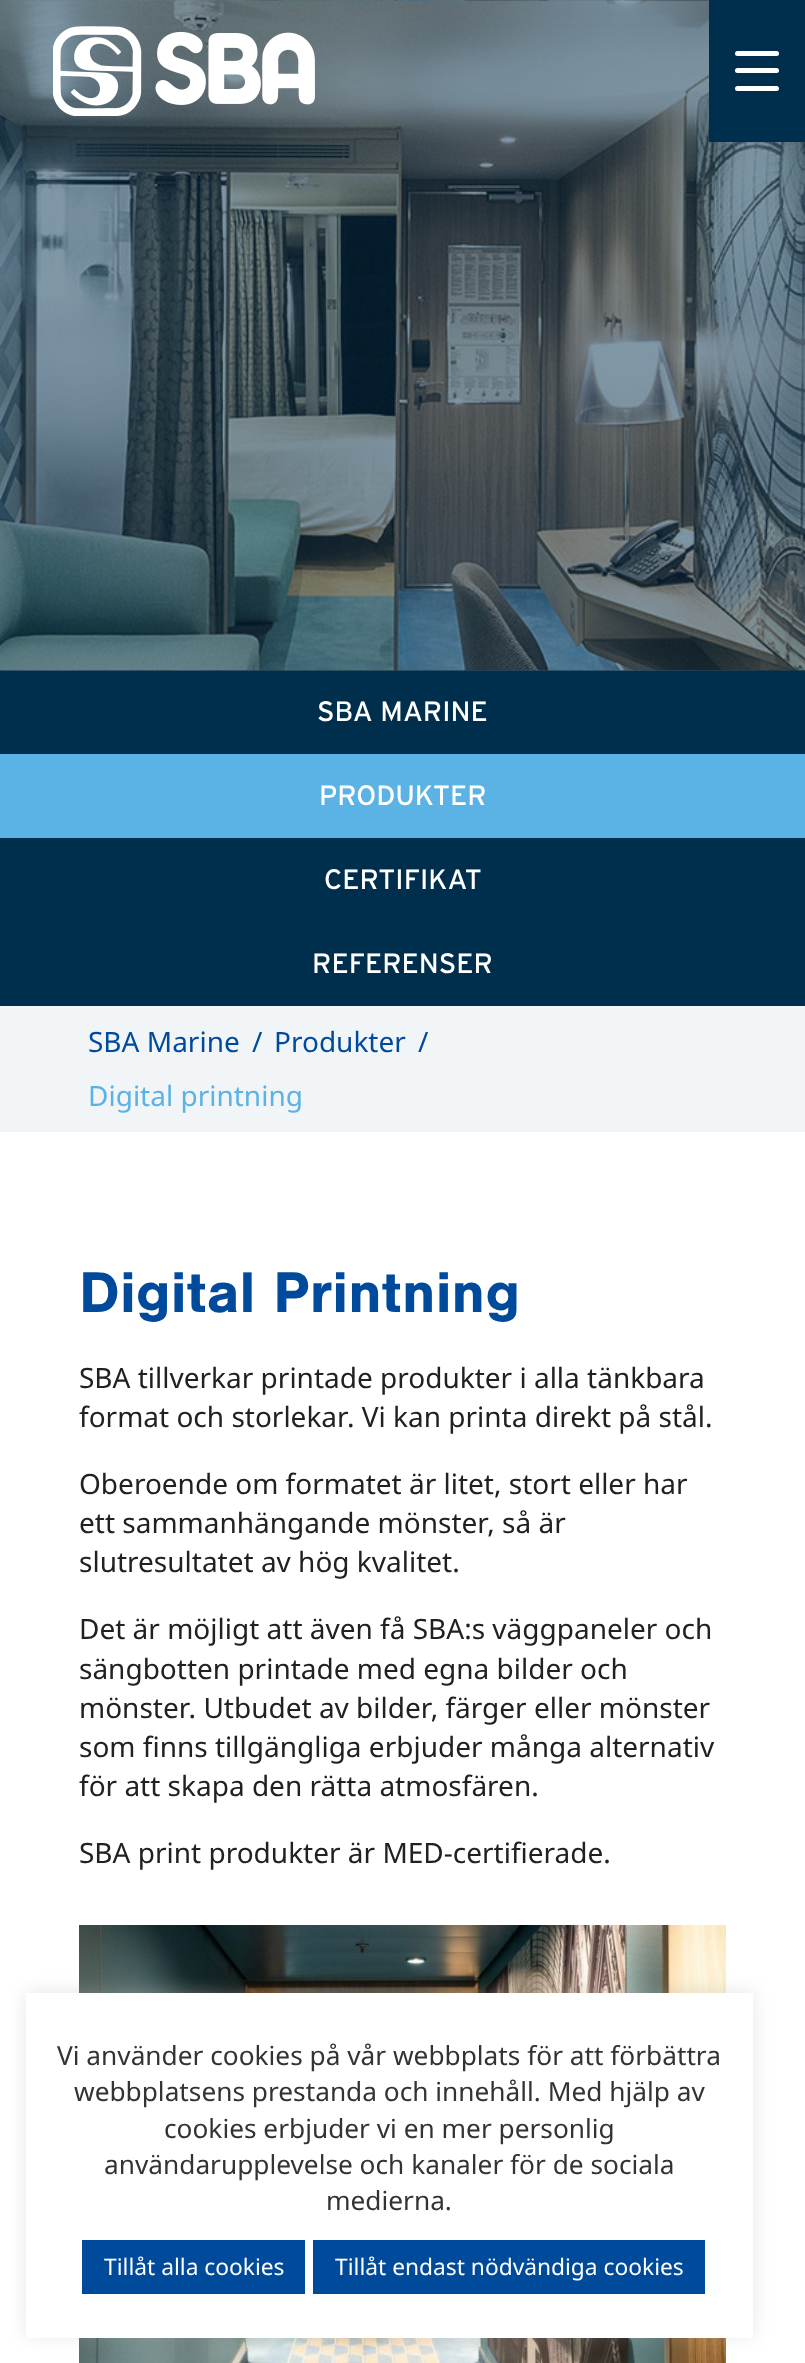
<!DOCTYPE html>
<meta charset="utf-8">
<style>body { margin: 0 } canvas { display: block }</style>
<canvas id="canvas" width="805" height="2363"></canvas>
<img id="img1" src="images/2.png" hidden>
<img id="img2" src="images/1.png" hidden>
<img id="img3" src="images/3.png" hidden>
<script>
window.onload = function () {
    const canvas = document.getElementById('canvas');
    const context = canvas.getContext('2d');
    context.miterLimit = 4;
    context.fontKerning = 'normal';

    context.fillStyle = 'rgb(255, 255, 255)';
    context.fillRect(0, 0, 805, 2363);
    context.fillStyle = 'rgb(0, 47, 78)';
    context.fillRect(0, 670, 805, 336);
    context.drawImage(document.getElementById('img1'), 0, 0, 805, 671);
    context.drawImage(document.getElementById('img2'), 53, 26, 262, 90);
    context.fillRect(709, 0, 96, 142);
    context.fillStyle = 'rgb(255, 255, 255)';
    context.beginPath();
    context.roundRect(735, 68, 44, 5, 2.5);
    context.fill();
    context.beginPath();
    context.roundRect(735, 51, 44, 5, 2.5);
    context.fill();
    context.beginPath();
    context.roundRect(735, 86, 44, 5, 2.5);
    context.fill();
    context.fillStyle = 'rgb(90, 178, 229)';
    context.fillRect(0, 754, 805, 84);
    context.fillStyle = 'rgb(242, 245, 247)';
    context.fillRect(0, 1006, 805, 126);
    context.drawImage(document.getElementById('img3'), 79, 1925, 647, 438);
    context.fillStyle = 'rgba(172, 171, 171, 0.3)';
    context.filter = 'blur(9px)';
    context.beginPath();
    context.rect(26, 1992, 727, 344);
    context.fill();
    context.filter = 'none';
    context.fillStyle = 'rgb(255, 255, 255)';
    context.fillRect(26, 1993, 727, 345);
    context.fillStyle = 'rgb(0, 74, 156)';
    context.fillRect(82, 2240, 223, 54);
    context.fillRect(313, 2240, 392, 54);
    context.font = '28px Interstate';
    context.fillStyle = 'rgb(255, 255, 255)';
    context.fillText('SBA MARINE', 317, 721);
    context.fillText('PRODUKTER', 319, 805);
    context.fillText('CERTIFIKAT', 324, 889);
    context.fillText('REFERENSER', 312, 973);
    context.font = '28px Noto Sans';
    context.fillStyle = 'rgb(0, 74, 156)';
    context.fillText('SBA Marine', 88, 1052);
    context.fillText('/', 252, 1052);
    context.fillText('Produkter', 274, 1052);
    context.fillText('/', 418, 1052);
    context.fillStyle = 'rgb(90, 178, 229)';
    context.fillText('Digital printning', 88, 1106);
    context.font = 'bold 59.5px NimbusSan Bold';
    context.fillStyle = 'rgb(0, 74, 156)';
    context.fillText('Digital Printning', 79, 1312);
    context.font = '28px Noto Sans';
    context.fillStyle = 'rgb(33, 33, 33)';
    context.fillText('SBA tillverkar printade produkter i alla tänkbara', 79, 1388);
    context.fillText('format och storlekar. Vi kan printa direkt på stål.', 79, 1427);
    context.fillText('Oberoende om formatet är litet, stort eller har', 79, 1494);
    context.fillText('ett sammanhängande mönster, så är', 79, 1533);
    context.fillText('slutresultatet av hög kvalitet.', 79, 1572);
    context.fillText('Det är möjligt att även få SBA:s väggpaneler och', 79, 1639);
    context.fillText('sängbotten printade med egna bilder och', 79, 1679);
    context.fillText('mönster. Utbudet av bilder, färger eller mönster', 79, 1718);
    context.fillText('som finns tillgängliga erbjuder många alternativ', 79, 1757);
    context.fillText('för att skapa den rätta atmosfären.', 79, 1796);
    context.fillText('SBA print produkter är MED-certifierade.', 79, 1863);
    context.font = '26.25px Noto Sans';
    context.fillStyle = 'rgb(51, 51, 51)';
    context.fillText('Vi använder cookies på vår webbplats för att förbättra', 57, 2065);
    context.fillText('webbplatsens prestanda och innehåll. Med hjälp av', 74, 2101);
    context.fillText('cookies erbjuder vi en mer personlig', 164, 2138);
    context.fillText('användarupplevelse och kanaler för de sociala', 104, 2174);
    context.fillText('medierna.', 326, 2210);
    context.font = '22.75px Noto Sans';
    context.fillStyle = 'rgb(255, 255, 255)';
    context.fillText('Tillåt alla cookies', 104, 2275);
    context.fillText('Tillåt endast nödvändiga cookies', 335, 2275);
};
</script>
